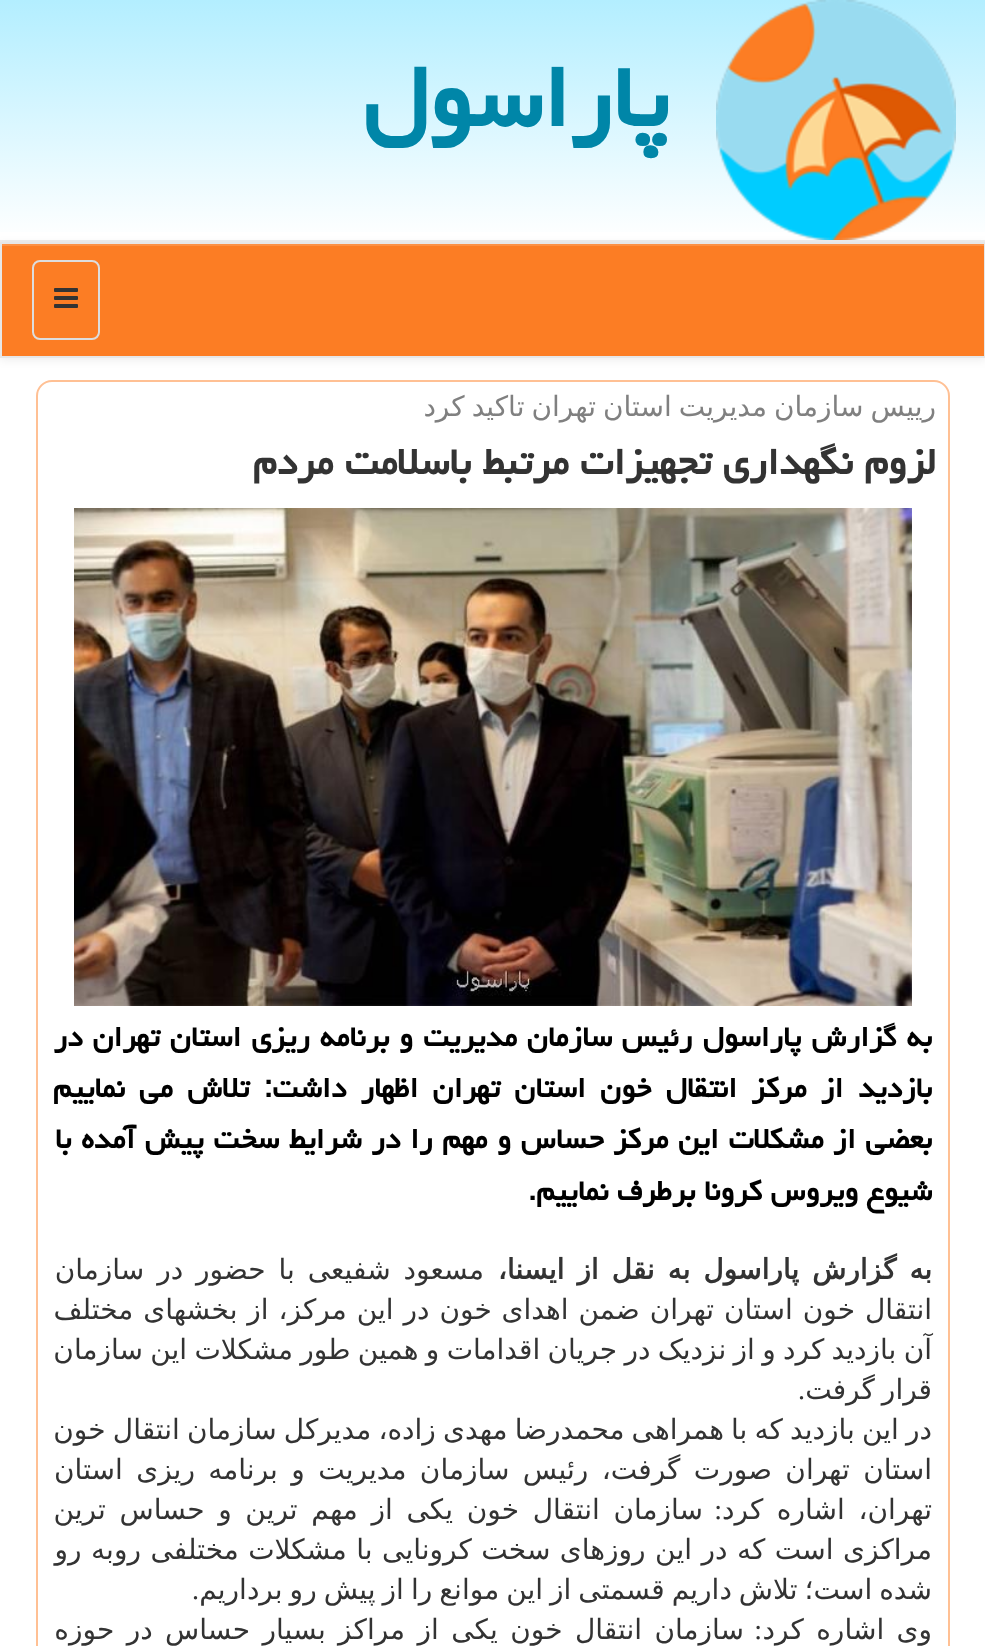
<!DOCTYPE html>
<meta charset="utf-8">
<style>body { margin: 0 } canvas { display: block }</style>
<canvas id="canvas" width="985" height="1646"></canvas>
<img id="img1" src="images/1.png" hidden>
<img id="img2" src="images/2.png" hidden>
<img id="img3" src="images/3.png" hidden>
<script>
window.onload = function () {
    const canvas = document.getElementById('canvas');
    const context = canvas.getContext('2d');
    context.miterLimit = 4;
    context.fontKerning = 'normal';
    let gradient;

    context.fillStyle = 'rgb(255, 255, 255)';
    context.fillRect(0, 0, 985, 1646);
    gradient = context.createLinearGradient(493, 0, 493, 240);
    gradient.addColorStop(0, 'rgb(179, 238, 255)');
    gradient.addColorStop(1, 'rgb(255, 255, 255)');
    context.fillStyle = gradient;
    context.fillRect(0, 0, 985, 232);
    context.fillStyle = 'rgb(238, 238, 238)';
    context.fillRect(0, 240, 985, 2);
    context.drawImage(document.getElementById('img1'), 716, 0, 240, 240);
    context.fillStyle = 'rgba(0, 0, 0, 0.07)';
    context.filter = 'blur(5px)';
    context.beginPath();
    context.rect(0, 244, 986, 116);
    context.fill();
    context.filter = 'none';
    context.fillStyle = 'rgb(252, 125, 36)';
    context.fillRect(2, 246, 982, 110);
    context.fillStyle = 'rgb(252, 145, 69)';
    context.fillRect(2, 244, 982, 2);
    context.strokeStyle = 'rgb(231, 231, 231)';
    context.lineWidth = 2;
    context.strokeRect(1, 243, 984, 114);
    context.beginPath();
    context.roundRect(33, 261, 66, 78, 7);
    context.strokeStyle = 'rgb(221, 221, 221)';
    context.stroke();
    context.drawImage(document.getElementById('img2'), 54, 288, 24, 20);
    context.beginPath();
    context.roundRect(37, 381, 912, 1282, 15);
    context.strokeStyle = 'rgb(255, 192, 148)';
    context.stroke();
    context.drawImage(document.getElementById('img3'), 74, 508, 838, 498);
    context.direction = 'rtl';
    context.font = 'bold 112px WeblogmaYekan';
    context.fillStyle = 'rgb(0, 134, 168)';
    context.fillText('پاراسول', 669, 126);
    context.wordSpacing = '-1.9px';
    context.font = '28px DejaVu Sans';
    context.fillStyle = 'rgb(128, 128, 128)';
    context.fillText('رییس سازمان مدیریت استان تهران تاكید كرد', 936, 416);
    context.wordSpacing = '0px';
    context.font = 'bold 47.6px WeblogmaYekan';
    context.fillStyle = 'rgb(51, 51, 51)';
    context.fillText('لزوم نگهداری تجهیزات مرتبط باسلامت مردم', 936, 474);
    context.wordSpacing = '1.4px';
    context.font = 'bold 36px WeblogmaYekan';
    context.fillStyle = 'rgb(0, 0, 0)';
    context.fillText('به گزارش پاراسول رئیس سازمان مدیریت و برنامه ریزی استان تهران در', 932, 1046);
    context.wordSpacing = '5.75px';
    context.fillText('بازدید از مركز انتقال خون استان تهران اظهار داشت: تلاش می نماییم', 932, 1097);
    context.wordSpacing = '1.1px';
    context.fillText('بعضی از مشكلات این مركز حساس و مهم را در شرایط سخت پیش آمده با', 932, 1148);
    context.wordSpacing = '0px';
    context.fillText('شیوع ویروس كرونا برطرف نماییم.', 932, 1200);
    context.wordSpacing = '4px';
    context.font = 'bold 28px DejaVu Sans';
    context.fillStyle = 'rgb(51, 51, 51)';
    context.fillText('به گزارش پاراسول به نقل از ایسنا،', 932, 1279);
    context.font = '28px DejaVu Sans';
    context.fillText('مسعود شفیعی با حضور در سازمان', 484, 1279);
    context.wordSpacing = '1px';
    context.fillText('انتقال خون استان تهران ضمن اهدای خون در این مرکز، از بخشهای مختلف', 932, 1319);
    context.wordSpacing = '-1.6px';
    context.fillText('آن بازدید کرد و از نزدیک در جریان اقدامات و همین طور مشکلات این سازمان', 932, 1359);
    context.wordSpacing = '-1.9px';
    context.fillText('قرار گرفت', 932, 1399);
    context.wordSpacing = '0px';
    context.font = '28px Liberation Serif';
    context.fillText('.', 805, 1399);
    context.wordSpacing = '-1.75px';
    context.font = '28px DejaVu Sans';
    context.fillText('در این بازدید که با همراهی محمدرضا مهدی زاده، مدیرکل سازمان انتقال خون', 932, 1439);
    context.wordSpacing = '4.5px';
    context.fillText('استان تهران صورت گرفت، رئیس سازمان مدیریت و برنامه ریزی استان', 932, 1479);
    context.wordSpacing = '4.75px';
    context.fillText('تهران، اشاره کرد', 932, 1519);
    context.wordSpacing = '0px';
    context.font = '28px Liberation Serif';
    context.fillText(':', 722, 1519);
    context.wordSpacing = '4.75px';
    context.font = '28px DejaVu Sans';
    context.fillText('سازمان انتقال خون یکی از مهم ترین و حساس ترین', 703, 1519);
    context.wordSpacing = '0.6px';
    context.fillText('مراکزی است که در این روزهای سخت کرونایی با مشکلات مختلفی روبه رو', 932, 1559);
    context.wordSpacing = '-1.9px';
    context.fillText('شده است؛ تلاش داریم قسمتی از این موانع را از پیش رو برداریم', 932, 1599);
    context.wordSpacing = '0px';
    context.font = '28px Liberation Serif';
    context.fillText('.', 199, 1599);
    context.wordSpacing = '3.5px';
    context.font = '28px DejaVu Sans';
    context.fillText('وی اشاره کرد', 932, 1639);
    context.wordSpacing = '0px';
    context.font = '28px Liberation Serif';
    context.fillText(':', 762, 1639);
    context.wordSpacing = '3.5px';
    context.font = '28px DejaVu Sans';
    context.fillText('سازمان انتقال خون یکی از مراکز بسیار حساس در حوزه', 744, 1639);
};
</script>
